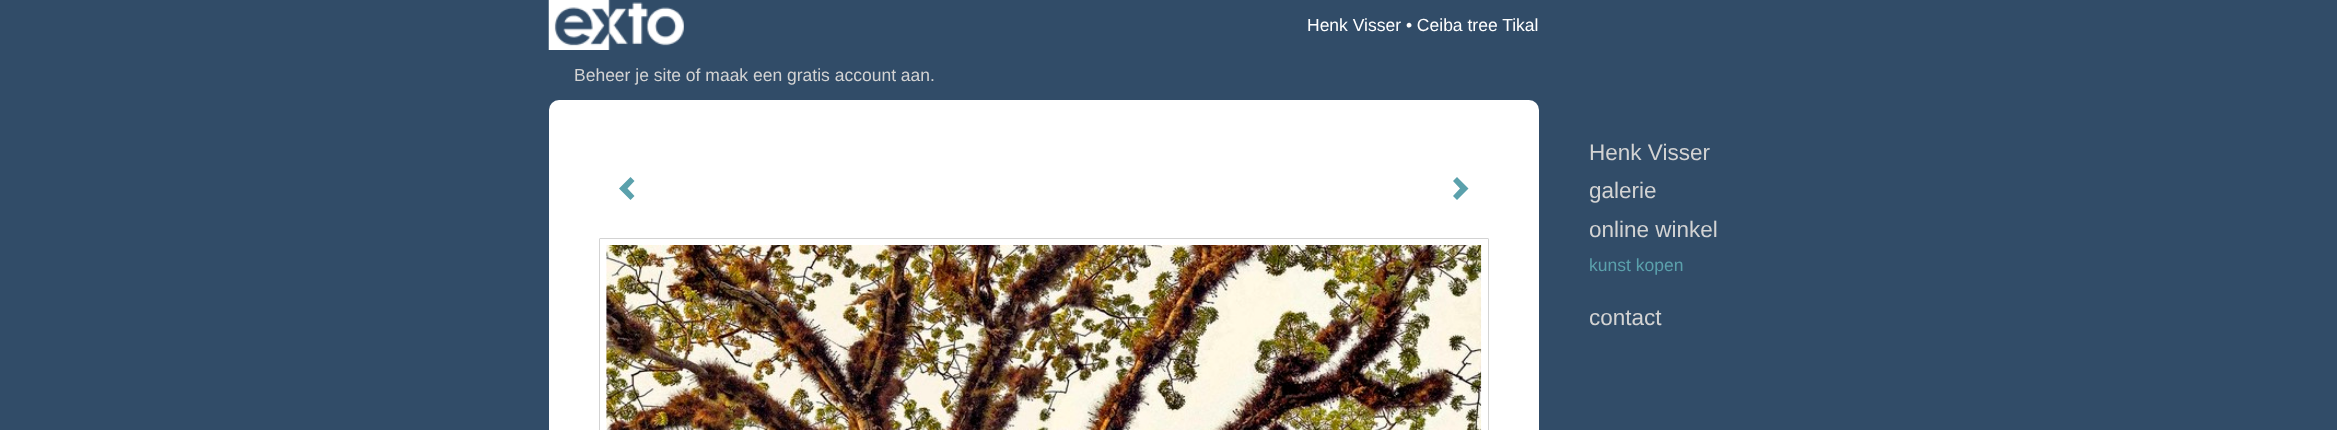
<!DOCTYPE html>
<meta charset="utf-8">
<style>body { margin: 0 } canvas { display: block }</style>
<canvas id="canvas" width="2337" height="430"></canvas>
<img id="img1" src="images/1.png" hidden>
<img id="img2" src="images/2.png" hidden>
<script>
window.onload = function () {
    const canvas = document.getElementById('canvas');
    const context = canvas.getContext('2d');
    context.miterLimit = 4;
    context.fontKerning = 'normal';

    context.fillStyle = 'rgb(49, 76, 104)';
    context.fillRect(0, 0, 2337, 430);
    context.drawImage(document.getElementById('img1'), 548, 0, 136, 50);
    context.fillStyle = 'rgb(255, 255, 255)';
    context.beginPath();
    context.roundRect(549, 100, 990, 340, 10);
    context.fill();
    context.fillStyle = 'rgb(91, 161, 172)';
    context.beginPath();
    context.moveTo(634.5, 181);
    context.lineTo(627.5, 188.5);
    context.lineTo(634.5, 196);
    context.lineTo(630.5, 200);
    context.lineTo(619, 188.5);
    context.lineTo(630.5, 177);
    context.closePath();
    context.fill();
    context.beginPath();
    context.moveTo(1468.5, 188.5);
    context.lineTo(1457, 200);
    context.lineTo(1453, 196);
    context.lineTo(1460, 188.5);
    context.lineTo(1453, 181);
    context.lineTo(1457, 177);
    context.closePath();
    context.fill();
    context.beginPath();
    context.roundRect(599.5, 238.5, 889, 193, 0.5);
    context.strokeStyle = 'rgb(211, 211, 211)';
    context.stroke();
    context.drawImage(document.getElementById('img2'), 606, 245, 876, 185);
    context.font = '17.5px Liberation Sans';
    context.fillStyle = 'rgb(255, 255, 255)';
    context.fillText('Henk Visser • Ceiba tree Tikal', 1307, 31);
    context.fillStyle = 'rgb(211, 211, 211)';
    context.fillText('Beheer je site of maak een gratis account aan.', 574, 81);
    context.font = '22.5px Liberation Sans';
    context.fillText('Henk Visser', 1589, 160);
    context.fillText('galerie', 1589, 198);
    context.fillText('online winkel', 1589, 237);
    context.font = '17.5px Liberation Sans';
    context.fillStyle = 'rgb(91, 161, 172)';
    context.fillText('kunst kopen', 1589, 271);
    context.font = '22.5px Liberation Sans';
    context.fillStyle = 'rgb(211, 211, 211)';
    context.fillText('contact', 1589, 325);
};
</script>
